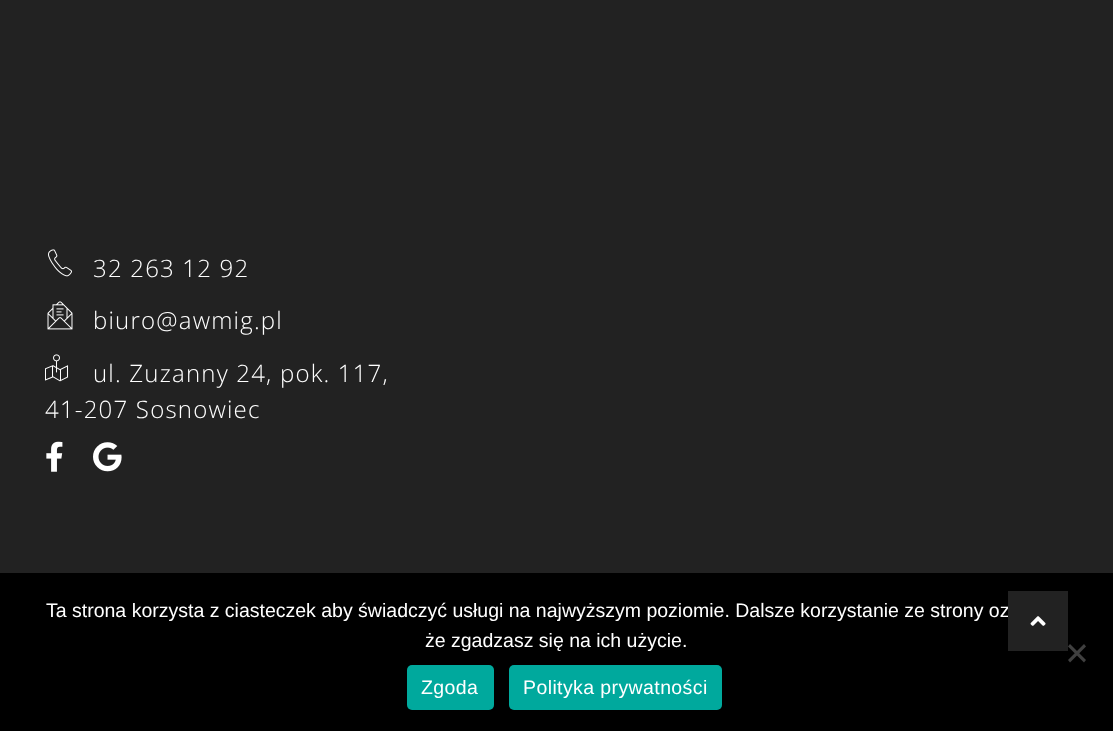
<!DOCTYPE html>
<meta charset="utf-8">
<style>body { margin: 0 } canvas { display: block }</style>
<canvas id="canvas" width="1113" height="731"></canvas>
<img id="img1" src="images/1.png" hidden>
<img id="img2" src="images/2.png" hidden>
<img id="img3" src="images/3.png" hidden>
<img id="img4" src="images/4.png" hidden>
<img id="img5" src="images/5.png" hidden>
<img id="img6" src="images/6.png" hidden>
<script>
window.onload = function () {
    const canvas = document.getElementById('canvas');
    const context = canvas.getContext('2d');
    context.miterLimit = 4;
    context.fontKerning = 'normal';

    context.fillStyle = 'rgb(34, 34, 34)';
    context.fillRect(0, 0, 1113, 731);
    context.drawImage(document.getElementById('img1'), 48, 249, 24, 28);
    context.drawImage(document.getElementById('img2'), 47, 301, 26, 29);
    context.drawImage(document.getElementById('img3'), 45, 354, 24, 28);
    context.drawImage(document.getElementById('img4'), 46, 441, 17, 31);
    context.drawImage(document.getElementById('img5'), 93, 442, 29, 30);
    context.fillStyle = 'rgb(0, 0, 0)';
    context.fillRect(0, 573, 1113, 158);
    context.fillStyle = 'rgb(64, 64, 64)';
    context.beginPath();
    context.moveTo(1084, 644);
    context.lineTo(1086, 646.5);
    context.lineTo(1070, 662.5);
    context.lineTo(1068, 660);
    context.closePath();
    context.fill();
    context.beginPath();
    context.moveTo(1068, 646.5);
    context.lineTo(1070, 644);
    context.lineTo(1086, 660);
    context.lineTo(1084, 662.5);
    context.closePath();
    context.fill();
    context.fillStyle = 'rgb(0, 169, 157)';
    context.beginPath();
    context.roundRect(407, 665, 87, 45, 5);
    context.fill();
    context.beginPath();
    context.roundRect(509, 665, 213, 45, 5);
    context.fill();
    context.letterSpacing = '1.2px';
    context.font = '300 24px Open Sans';
    context.fillStyle = 'rgb(255, 255, 255)';
    context.fillText('32 263 12 92', 93, 277);
    context.fillText('biuro@awmig.pl', 93, 329);
    context.fillText('ul. Zuzanny 24, pok. 117,', 93, 382);
    context.fillText('41-207 Sosnowiec', 45, 418);
    context.letterSpacing = '0px';
    context.font = '19.5px Liberation Sans';
    context.fillText('Ta strona korzysta z ciasteczek aby świadczyć usługi na najwyższym poziomie. Dalsze korzystanie ze strony oz', 46, 617);
    context.fillText('że zgadzasz się na ich użycie.', 425, 647);
    context.letterSpacing = '0.4px';
    context.fillText('Zgoda', 421, 694);
    context.fillText('Polityka prywatności', 523, 694);
    context.fillStyle = 'rgb(34, 34, 34)';
    context.fillRect(1008, 591, 60, 60);
    context.drawImage(document.getElementById('img6'), 1030, 616, 16, 10);
};
</script>
